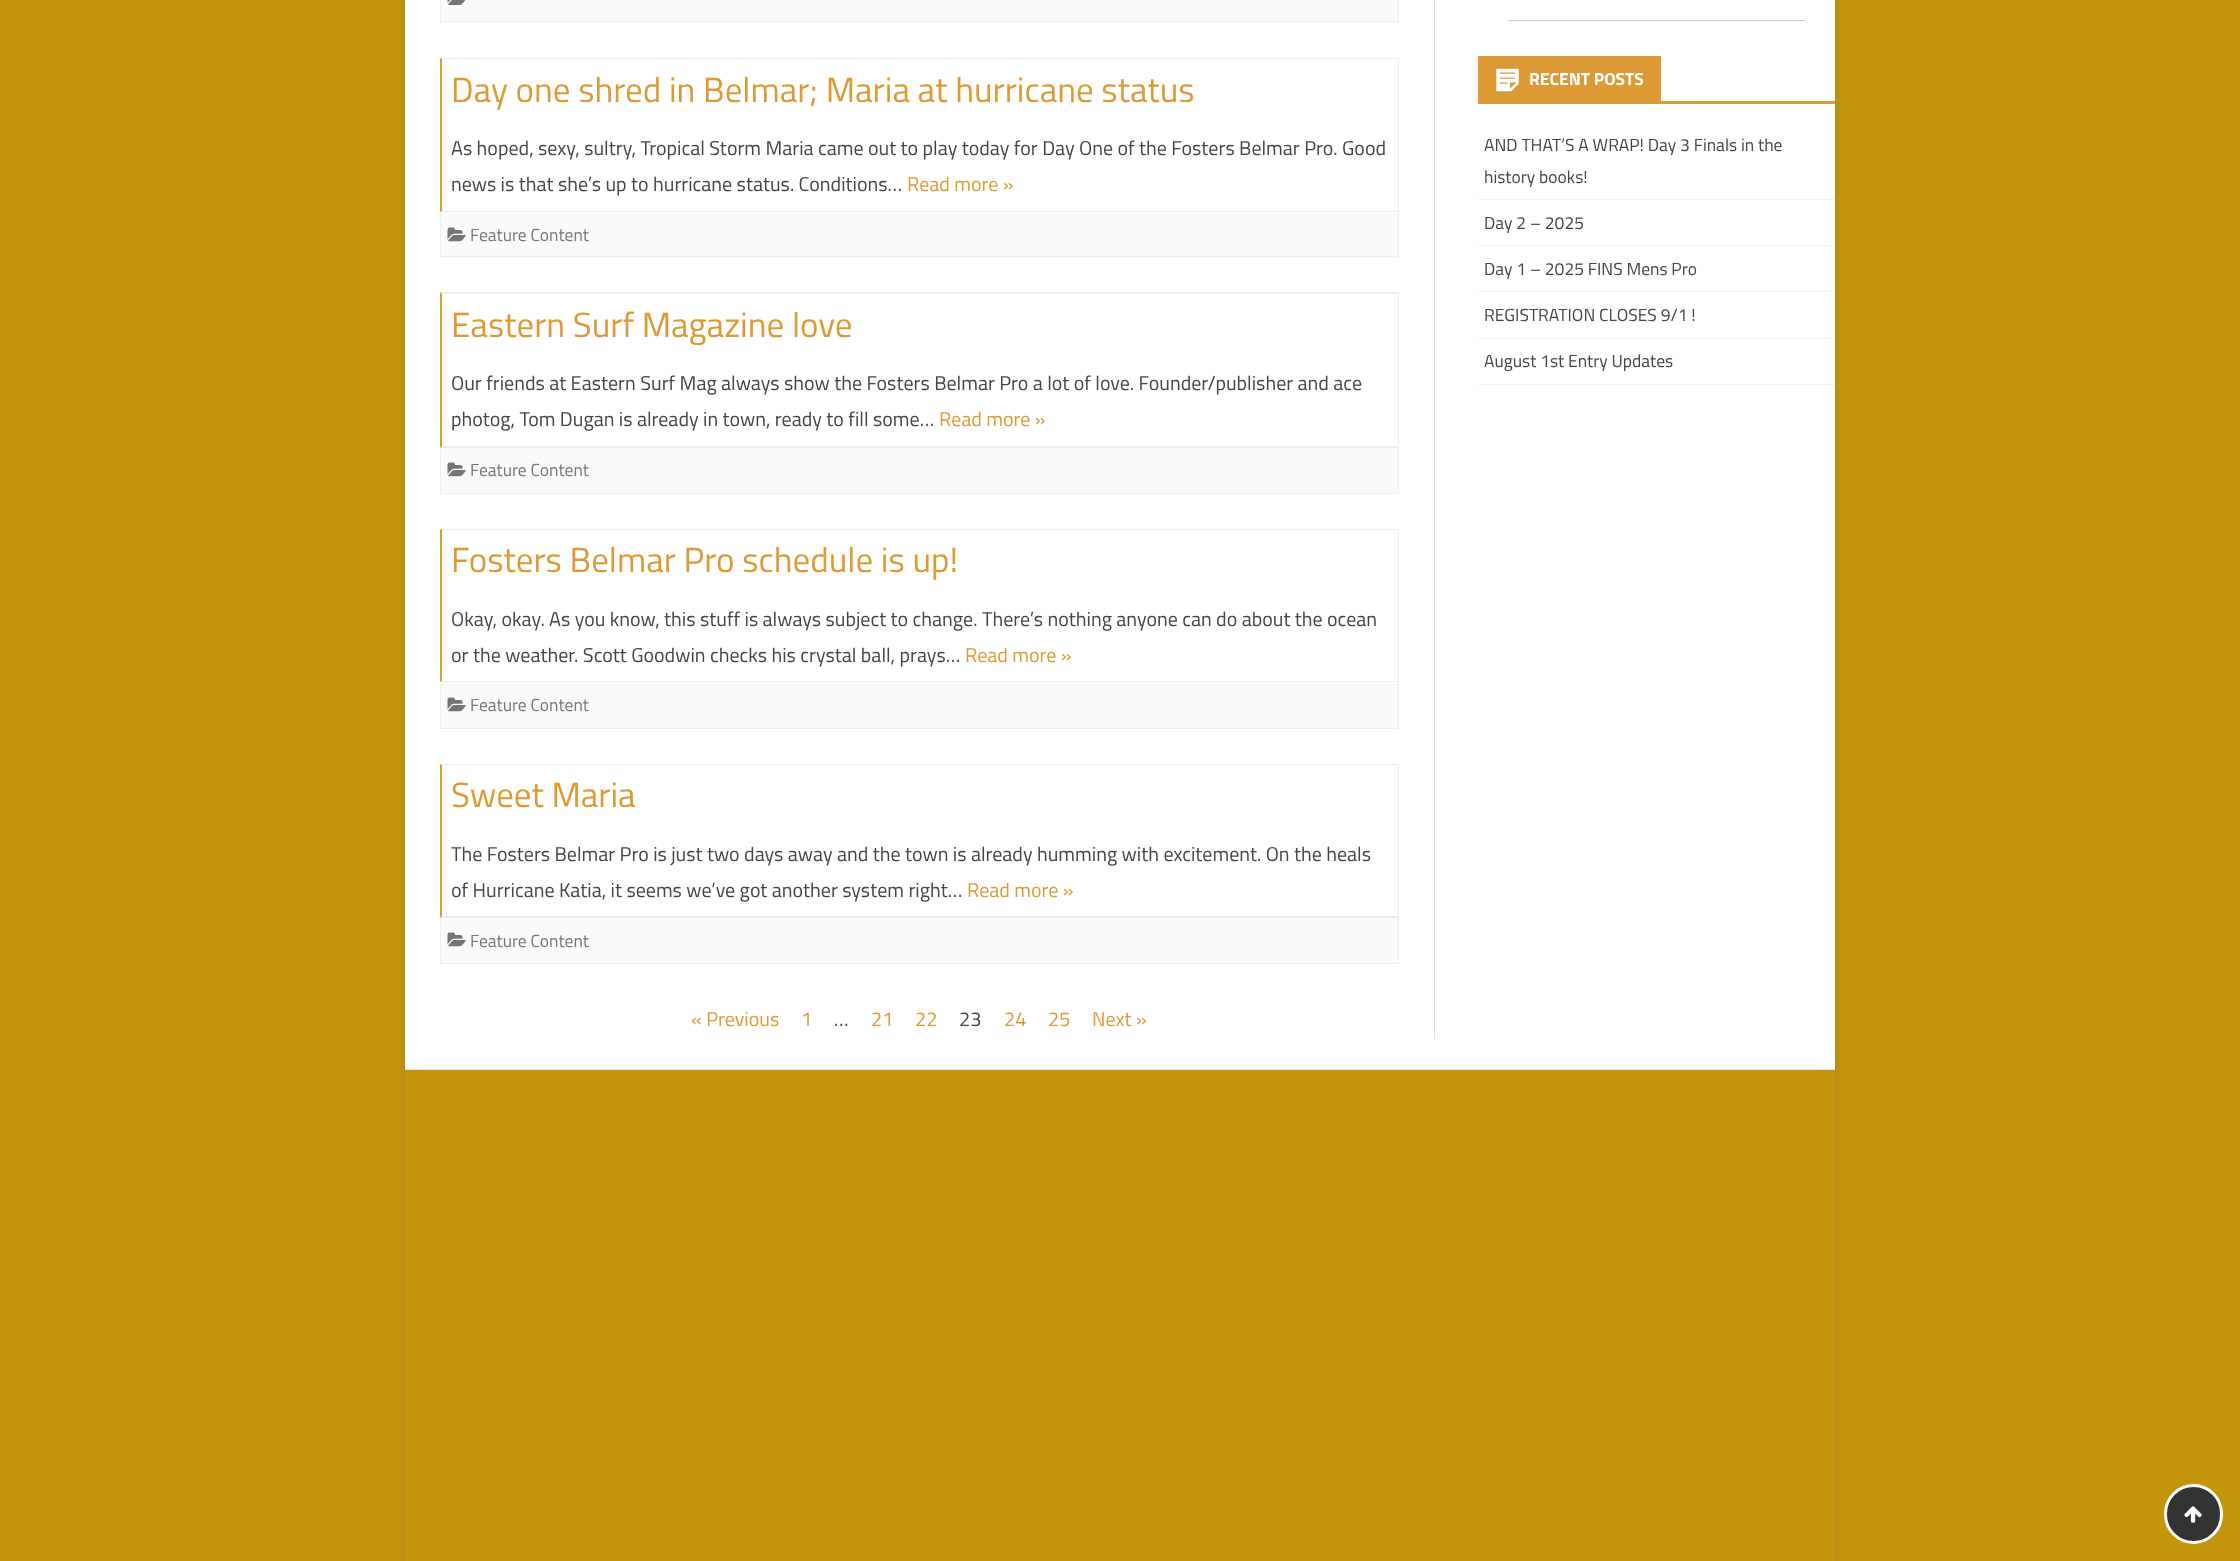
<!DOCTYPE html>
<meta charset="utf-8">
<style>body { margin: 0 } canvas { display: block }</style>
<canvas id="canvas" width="2240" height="1561"></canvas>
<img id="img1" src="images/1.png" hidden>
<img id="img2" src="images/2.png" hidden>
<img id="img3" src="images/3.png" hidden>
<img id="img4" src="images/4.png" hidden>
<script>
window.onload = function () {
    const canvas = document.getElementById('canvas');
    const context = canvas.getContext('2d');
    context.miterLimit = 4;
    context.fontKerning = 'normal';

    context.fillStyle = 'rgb(196, 150, 12)';
    context.fillRect(0, 0, 2240, 1561);
    context.fillStyle = 'rgba(100, 100, 100, 0.3)';
    context.filter = 'blur(4px)';
    context.beginPath();
    context.rect(405, -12, 1430, 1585);
    context.fill();
    context.filter = 'none';
    context.fillStyle = 'rgb(255, 255, 255)';
    context.fillRect(405, 0, 1430, 1069);
    context.fillStyle = 'rgb(224, 224, 224)';
    context.fillRect(1434, 0, 1, 1039);
    context.fillStyle = 'rgb(250, 250, 250)';
    context.fillRect(441, 0, 957, 23);
    context.fillStyle = 'rgb(237, 237, 237)';
    context.fillRect(1398, 0, 1, 23);
    context.fillRect(440, 21, 959, 1);
    context.fillRect(440, 0, 1, 23);
    context.drawImage(document.getElementById('img1'), 447, 0, 19, 5);
    context.beginPath();
    context.moveTo(440, 58);
    context.lineTo(1399, 58);
    context.lineTo(1398, 59);
    context.lineTo(442, 59);
    context.closePath();
    context.fill();
    context.fillRect(1398, 58, 1, 155);
    context.beginPath();
    context.moveTo(1399, 212);
    context.lineTo(440, 212);
    context.lineTo(442, 211);
    context.lineTo(1398, 211);
    context.closePath();
    context.fill();
    context.fillStyle = 'rgb(221, 153, 51)';
    context.beginPath();
    context.moveTo(440, 212);
    context.lineTo(440, 58);
    context.lineTo(442, 59);
    context.lineTo(442, 211);
    context.closePath();
    context.fill();
    context.fillStyle = 'rgb(250, 250, 250)';
    context.fillRect(441, 213, 957, 45);
    context.fillStyle = 'rgb(237, 237, 237)';
    context.fillRect(1398, 213, 1, 45);
    context.fillRect(440, 256, 959, 1);
    context.fillRect(440, 213, 1, 45);
    context.drawImage(document.getElementById('img2'), 447, 227, 19, 15);
    context.beginPath();
    context.moveTo(440, 292);
    context.lineTo(1399, 292);
    context.lineTo(1398, 294);
    context.lineTo(442, 294);
    context.closePath();
    context.fill();
    context.fillRect(1398, 293, 1, 155);
    context.beginPath();
    context.moveTo(1399, 448);
    context.lineTo(440, 448);
    context.lineTo(442, 446);
    context.lineTo(1398, 446);
    context.closePath();
    context.fill();
    context.fillStyle = 'rgb(221, 153, 51)';
    context.beginPath();
    context.moveTo(440, 448);
    context.lineTo(440, 292);
    context.lineTo(442, 294);
    context.lineTo(442, 446);
    context.closePath();
    context.fill();
    context.fillStyle = 'rgb(250, 250, 250)';
    context.fillRect(441, 448, 957, 45);
    context.fillStyle = 'rgb(237, 237, 237)';
    context.fillRect(1398, 448, 1, 46);
    context.fillRect(440, 493, 959, 1);
    context.fillRect(440, 448, 1, 46);
    context.drawImage(document.getElementById('img2'), 447, 462, 19, 15);
    context.beginPath();
    context.moveTo(440, 529);
    context.lineTo(1399, 529);
    context.lineTo(1398, 530);
    context.lineTo(442, 530);
    context.closePath();
    context.fill();
    context.fillRect(1398, 529, 1, 154);
    context.beginPath();
    context.moveTo(1399, 682);
    context.lineTo(440, 682);
    context.lineTo(442, 681);
    context.lineTo(1398, 681);
    context.closePath();
    context.fill();
    context.fillStyle = 'rgb(221, 153, 51)';
    context.beginPath();
    context.moveTo(440, 682);
    context.lineTo(440, 529);
    context.lineTo(442, 530);
    context.lineTo(442, 681);
    context.closePath();
    context.fill();
    context.fillStyle = 'rgb(250, 250, 250)';
    context.fillRect(441, 683, 957, 45);
    context.fillStyle = 'rgb(237, 237, 237)';
    context.fillRect(1398, 683, 1, 46);
    context.fillRect(440, 728, 959, 1);
    context.fillRect(440, 683, 1, 46);
    context.drawImage(document.getElementById('img2'), 447, 697, 19, 15);
    context.beginPath();
    context.moveTo(440, 764);
    context.lineTo(1399, 764);
    context.lineTo(1398, 765);
    context.lineTo(442, 765);
    context.closePath();
    context.fill();
    context.fillRect(1398, 764, 1, 154);
    context.beginPath();
    context.moveTo(1399, 918);
    context.lineTo(440, 918);
    context.lineTo(442, 916);
    context.lineTo(1398, 916);
    context.closePath();
    context.fill();
    context.fillStyle = 'rgb(221, 153, 51)';
    context.beginPath();
    context.moveTo(440, 918);
    context.lineTo(440, 764);
    context.lineTo(442, 765);
    context.lineTo(442, 916);
    context.closePath();
    context.fill();
    context.fillStyle = 'rgb(250, 250, 250)';
    context.fillRect(441, 918, 957, 45);
    context.fillStyle = 'rgb(237, 237, 237)';
    context.fillRect(1398, 918, 1, 46);
    context.fillRect(440, 963, 959, 1);
    context.fillRect(440, 918, 1, 46);
    context.drawImage(document.getElementById('img2'), 447, 932, 19, 15);
    context.fillStyle = 'rgb(204, 204, 204)';
    context.fillRect(1508, 20, 297, 1);
    context.fillStyle = 'rgb(221, 153, 51)';
    context.fillRect(1478, 101, 357, 3);
    context.fillRect(1478, 56, 183, 45);
    context.drawImage(document.getElementById('img3'), 1496, 68, 23, 24);
    context.fillStyle = 'rgb(242, 242, 242)';
    context.fillRect(1478, 199, 357, 1);
    context.fillRect(1478, 245, 357, 1);
    context.fillRect(1478, 291, 357, 1);
    context.fillRect(1478, 338, 357, 1);
    context.fillRect(1478, 384, 357, 1);
    context.fillStyle = 'rgb(196, 150, 12)';
    context.fillRect(405, 1070, 1430, 491);
    context.fillStyle = 'rgb(237, 237, 237)';
    context.fillRect(405, 1069, 1430, 1);
    context.fillStyle = 'rgb(51, 51, 51)';
    context.beginPath();
    context.roundRect(2165.5, 1485.5, 56, 57, 28);
    context.fill();
    context.strokeStyle = 'rgb(255, 255, 255)';
    context.lineWidth = 3;
    context.stroke();
    context.drawImage(document.getElementById('img4'), 2184, 1506, 18, 17);
    context.font = '35px Titillium Web';
    context.fillStyle = 'rgb(221, 153, 51)';
    context.fillText('Day one shred in Belmar; Maria at hurricane status', 451, 102);
    context.font = '20px Titillium Web';
    context.fillStyle = 'rgb(68, 68, 68)';
    context.fillText('As hoped, sexy, sultry, Tropical Storm Maria came out to play today for Day One of the Fosters Belmar Pro. Good', 451, 155);
    context.fillText('news is that she’s up to hurricane status. Conditions…', 451, 191);
    context.fillStyle = 'rgb(221, 153, 51)';
    context.fillText('Read more »', 907, 191);
    context.font = '17.5px Titillium Web';
    context.fillStyle = 'rgb(117, 117, 117)';
    context.fillText('Feature Content', 470, 241);
    context.font = '35px Titillium Web';
    context.fillStyle = 'rgb(221, 153, 51)';
    context.fillText('Eastern Surf Magazine love', 451, 337);
    context.font = '20px Titillium Web';
    context.fillStyle = 'rgb(68, 68, 68)';
    context.fillText('Our friends at Eastern Surf Mag always show the Fosters Belmar Pro a lot of love. Founder/publisher and ace', 451, 390);
    context.fillText('photog, Tom Dugan is already in town, ready to fill some…', 451, 426);
    context.fillStyle = 'rgb(221, 153, 51)';
    context.fillText('Read more »', 939, 426);
    context.font = '17.5px Titillium Web';
    context.fillStyle = 'rgb(117, 117, 117)';
    context.fillText('Feature Content', 470, 476);
    context.font = '35px Titillium Web';
    context.fillStyle = 'rgb(221, 153, 51)';
    context.fillText('Fosters Belmar Pro schedule is up!', 451, 572);
    context.font = '20px Titillium Web';
    context.fillStyle = 'rgb(68, 68, 68)';
    context.fillText('Okay, okay. As you know, this stuff is always subject to change. There’s nothing anyone can do about the ocean', 451, 626);
    context.fillText('or the weather. Scott Goodwin checks his crystal ball, prays…', 451, 662);
    context.fillStyle = 'rgb(221, 153, 51)';
    context.fillText('Read more »', 965, 662);
    context.font = '17.5px Titillium Web';
    context.fillStyle = 'rgb(117, 117, 117)';
    context.fillText('Feature Content', 470, 711);
    context.font = '35px Titillium Web';
    context.fillStyle = 'rgb(221, 153, 51)';
    context.fillText('Sweet Maria', 451, 807);
    context.font = '20px Titillium Web';
    context.fillStyle = 'rgb(68, 68, 68)';
    context.fillText('The Fosters Belmar Pro is just two days away and the town is already humming with excitement. On the heals', 451, 861);
    context.fillText('of Hurricane Katia, it seems we’ve got another system right…', 451, 897);
    context.fillStyle = 'rgb(221, 153, 51)';
    context.fillText('Read more »', 967, 897);
    context.font = '17.5px Titillium Web';
    context.fillStyle = 'rgb(117, 117, 117)';
    context.fillText('Feature Content', 470, 947);
    context.font = '20px Titillium Web';
    context.fillStyle = 'rgb(221, 153, 51)';
    context.fillText('« Previous', 691, 1026);
    context.fillText('1', 801, 1026);
    context.fillStyle = 'rgb(68, 68, 68)';
    context.fillText('…', 834, 1026);
    context.fillStyle = 'rgb(221, 153, 51)';
    context.fillText('21', 871, 1026);
    context.fillText('22', 915, 1026);
    context.fillStyle = 'rgb(68, 68, 68)';
    context.fillText('23', 959, 1026);
    context.fillStyle = 'rgb(221, 153, 51)';
    context.fillText('24', 1004, 1026);
    context.fillText('25', 1048, 1026);
    context.fillText('Next »', 1092, 1026);
    context.font = 'bold 17.5px Titillium Web';
    context.fillStyle = 'rgb(255, 255, 255)';
    context.fillText('RECENT POSTS', 1529, 85);
    context.font = '17.5px Titillium Web';
    context.fillStyle = 'rgb(68, 68, 68)';
    context.fillText('AND THAT’S A WRAP! Day 3 Finals in the', 1484, 151);
    context.fillText('history books!', 1484, 183);
    context.fillText('Day 2 – 2025', 1484, 229);
    context.fillText('Day 1 – 2025 FINS Mens Pro', 1484, 275);
    context.fillText('REGISTRATION CLOSES 9/1 !', 1484, 321);
    context.fillText('August 1st Entry Updates', 1484, 367);
};
</script>
